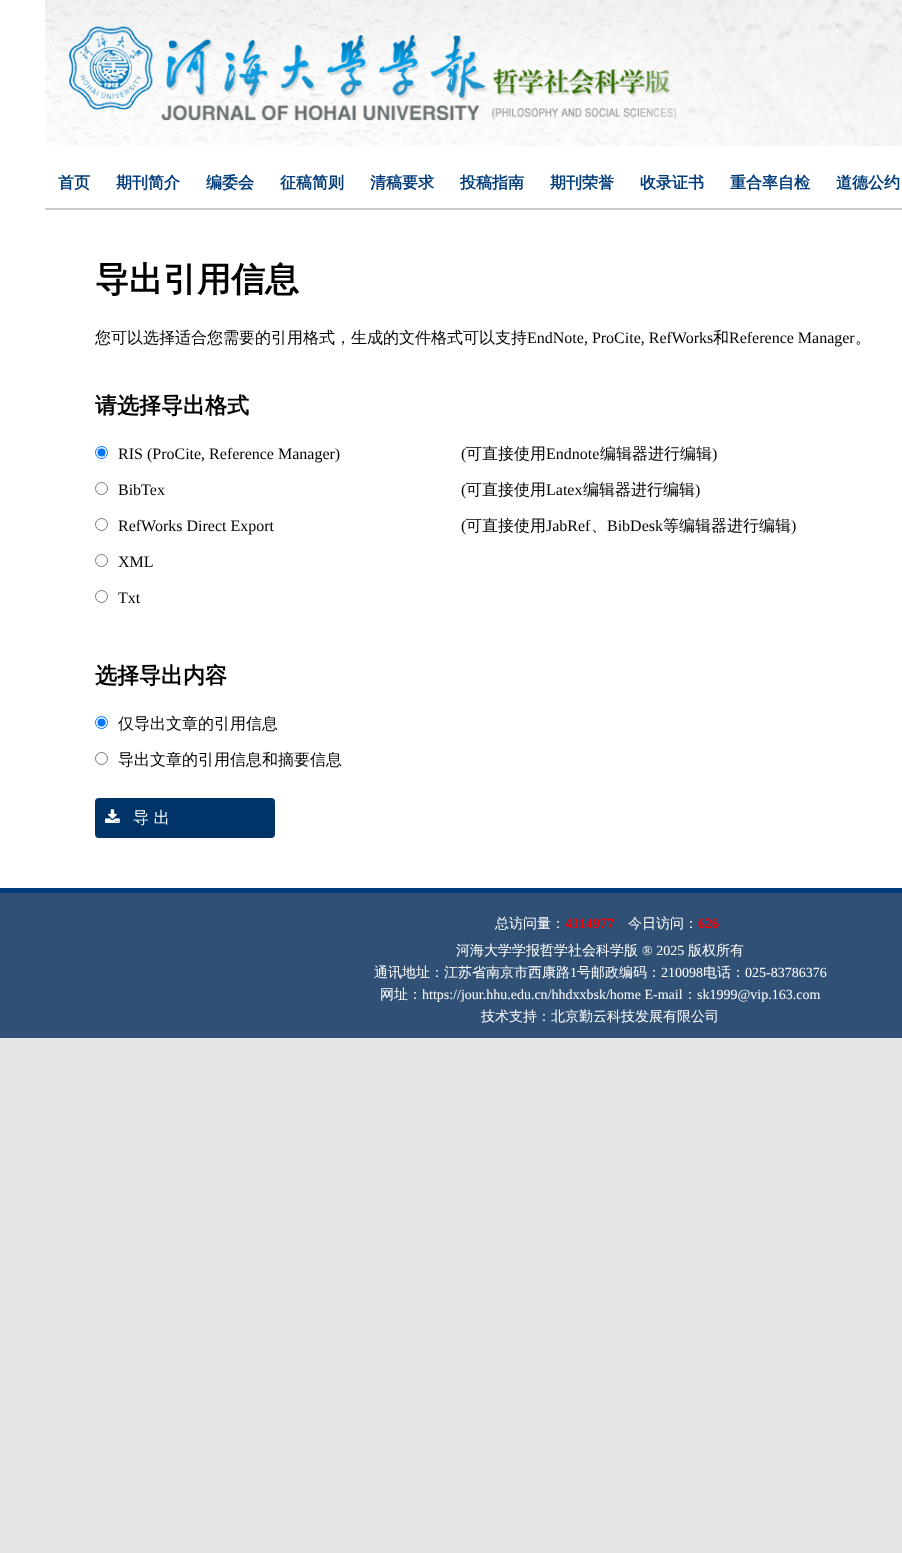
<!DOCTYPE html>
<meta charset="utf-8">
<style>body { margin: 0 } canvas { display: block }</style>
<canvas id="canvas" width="902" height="1553"></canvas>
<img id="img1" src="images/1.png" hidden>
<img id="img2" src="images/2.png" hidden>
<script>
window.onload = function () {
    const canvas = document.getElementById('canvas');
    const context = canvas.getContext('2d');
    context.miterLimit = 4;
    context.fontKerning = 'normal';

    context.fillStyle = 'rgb(230, 230, 230)';
    context.fillRect(0, 0, 902, 1553);
    context.fillStyle = 'rgb(255, 255, 255)';
    context.fillRect(0, 0, 902, 888);
    context.drawImage(document.getElementById('img1'), 45, 0, 857, 146);
    context.fillStyle = 'rgb(203, 203, 203)';
    context.fillRect(45, 208, 857, 2);
    context.beginPath();
    context.arc(101.5, 452.5, 6, 0, 2 * Math.PI);
    context.strokeStyle = 'rgb(0, 117, 255)';
    context.stroke();
    context.fillStyle = 'rgb(0, 117, 255)';
    context.beginPath();
    context.arc(101.5, 452.5, 4, 0, 2 * Math.PI);
    context.fill();
    context.beginPath();
    context.arc(101.5, 488.5, 6, 0, 2 * Math.PI);
    context.strokeStyle = 'rgb(118, 118, 118)';
    context.stroke();
    context.beginPath();
    context.arc(101.5, 524.5, 6, 0, 2 * Math.PI);
    context.stroke();
    context.beginPath();
    context.arc(101.5, 560.5, 6, 0, 2 * Math.PI);
    context.stroke();
    context.beginPath();
    context.arc(101.5, 596.5, 6, 0, 2 * Math.PI);
    context.stroke();
    context.beginPath();
    context.arc(101.5, 722.5, 6, 0, 2 * Math.PI);
    context.strokeStyle = 'rgb(0, 117, 255)';
    context.stroke();
    context.beginPath();
    context.arc(101.5, 722.5, 4, 0, 2 * Math.PI);
    context.fill();
    context.beginPath();
    context.arc(101.5, 758.5, 6, 0, 2 * Math.PI);
    context.strokeStyle = 'rgb(118, 118, 118)';
    context.stroke();
    context.fillStyle = 'rgb(0, 52, 105)';
    context.beginPath();
    context.roundRect(95, 798, 180, 40, 4);
    context.fill();
    context.drawImage(document.getElementById('img2'), 105, 809, 15, 14);
    context.fillStyle = 'rgb(0, 60, 122)';
    context.fillRect(0, 888, 902, 5);
    context.fillStyle = 'rgb(48, 81, 117)';
    context.fillRect(0, 893, 902, 145);
    context.font = 'bold 16px WenQuanYi Zen Hei';
    context.fillStyle = 'rgb(0, 60, 122)';
    context.fillText('首页', 58, 188);
    context.fillText('期刊简介', 116, 188);
    context.fillText('编委会', 206, 188);
    context.fillText('征稿简则', 280, 188);
    context.fillText('清稿要求', 370, 188);
    context.fillText('投稿指南', 460, 188);
    context.fillText('期刊荣誉', 550, 188);
    context.fillText('收录证书', 640, 188);
    context.fillText('重合率自检', 730, 188);
    context.fillText('道德公约', 836, 188);
    context.font = 'bold 34px WenQuanYi Zen Hei';
    context.fillStyle = 'rgb(0, 0, 0)';
    context.fillText('导出引用信息', 95, 291);
    context.font = '500 16px WenQuanYi Zen Hei';
    context.fillText('您可以选择适合您需要的引用格式，生成的文件格式可以支持', 95, 343);
    context.font = '16px Liberation Serif';
    context.fillText('EndNote, ProCite, RefWorks', 527, 343);
    context.font = '500 16px WenQuanYi Zen Hei';
    context.fillText('和', 713, 343);
    context.font = '16px Liberation Serif';
    context.fillText('Reference Manager', 729, 343);
    context.font = '500 16px WenQuanYi Zen Hei';
    context.fillText('。', 855, 343);
    context.font = 'bold 22px WenQuanYi Zen Hei';
    context.fillText('请选择导出格式', 95, 413);
    context.font = '16px Liberation Serif';
    context.fillText('RIS (ProCite, Reference Manager)', 118, 459);
    context.fillText('(', 461, 459);
    context.font = '500 16px WenQuanYi Zen Hei';
    context.fillText('可直接使用', 466, 459);
    context.font = '16px Liberation Serif';
    context.fillText('Endnote', 546, 459);
    context.font = '500 16px WenQuanYi Zen Hei';
    context.fillText('编辑器进行编辑', 600, 459);
    context.font = '16px Liberation Serif';
    context.fillText(')', 712, 459);
    context.fillText('BibTex', 118, 495);
    context.fillText('(', 461, 495);
    context.font = '500 16px WenQuanYi Zen Hei';
    context.fillText('可直接使用', 466, 495);
    context.font = '16px Liberation Serif';
    context.fillText('Latex', 546, 495);
    context.font = '500 16px WenQuanYi Zen Hei';
    context.fillText('编辑器进行编辑', 583, 495);
    context.font = '16px Liberation Serif';
    context.fillText(')', 695, 495);
    context.fillText('RefWorks Direct Export', 118, 531);
    context.fillText('(', 461, 531);
    context.font = '500 16px WenQuanYi Zen Hei';
    context.fillText('可直接使用', 466, 531);
    context.font = '16px Liberation Serif';
    context.fillText('JabRef', 546, 531);
    context.font = '500 16px WenQuanYi Zen Hei';
    context.fillText('、', 591, 531);
    context.font = '16px Liberation Serif';
    context.fillText('BibDesk', 607, 531);
    context.font = '500 16px WenQuanYi Zen Hei';
    context.fillText('等编辑器进行编辑', 663, 531);
    context.font = '16px Liberation Serif';
    context.fillText(')', 791, 531);
    context.fillText('XML', 118, 567);
    context.fillText('Txt', 118, 603);
    context.font = 'bold 22px WenQuanYi Zen Hei';
    context.fillText('选择导出内容', 95, 683);
    context.font = '500 16px WenQuanYi Zen Hei';
    context.fillText('仅导出文章的引用信息', 118, 729);
    context.fillText('导出文章的引用信息和摘要信息', 118, 765);
    context.fillStyle = 'rgb(255, 255, 255)';
    context.fillText('导 出', 133, 823);
    context.font = '500 14px WenQuanYi Zen Hei';
    context.fillText('总访问量：', 495, 928);
    context.font = 'bold 14px Liberation Serif';
    context.fillStyle = 'rgb(255, 0, 0)';
    context.fillText('4314977', 565, 928);
    context.font = '500 14px WenQuanYi Zen Hei';
    context.fillStyle = 'rgb(255, 255, 255)';
    context.fillText('今日访问：', 628, 928);
    context.font = 'bold 14px Liberation Serif';
    context.fillStyle = 'rgb(255, 0, 0)';
    context.fillText('626', 698, 928);
    context.font = '500 14px WenQuanYi Zen Hei';
    context.fillStyle = 'rgb(255, 255, 255)';
    context.fillText('河海大学学报哲学社会科学版', 456, 955);
    context.font = '14px Liberation Serif';
    context.fillText('® 2025', 642, 955);
    context.font = '500 14px WenQuanYi Zen Hei';
    context.fillText('版权所有', 688, 955);
    context.fillText('通讯地址：江苏省南京市西康路', 374, 977);
    context.font = '14px Liberation Serif';
    context.fillText('1', 570, 977);
    context.font = '500 14px WenQuanYi Zen Hei';
    context.fillText('号邮政编码：', 577, 977);
    context.font = '14px Liberation Serif';
    context.fillText('210098', 661, 977);
    context.font = '500 14px WenQuanYi Zen Hei';
    context.fillText('电话：', 703, 977);
    context.font = '14px Liberation Serif';
    context.fillText('025-83786376', 745, 977);
    context.font = '500 14px WenQuanYi Zen Hei';
    context.fillText('网址：', 380, 999);
    context.font = '14px Liberation Serif';
    context.fillText('https://jour.hhu.edu.cn/hhdxxbsk/home E-mail', 422, 999);
    context.font = '500 14px WenQuanYi Zen Hei';
    context.fillText('：', 683, 999);
    context.font = '14px Liberation Serif';
    context.fillText('sk1999@vip.163.com', 697, 999);
    context.font = '500 14px WenQuanYi Zen Hei';
    context.fillText('技术支持：北京勤云科技发展有限公司', 481, 1021);
};
</script>
